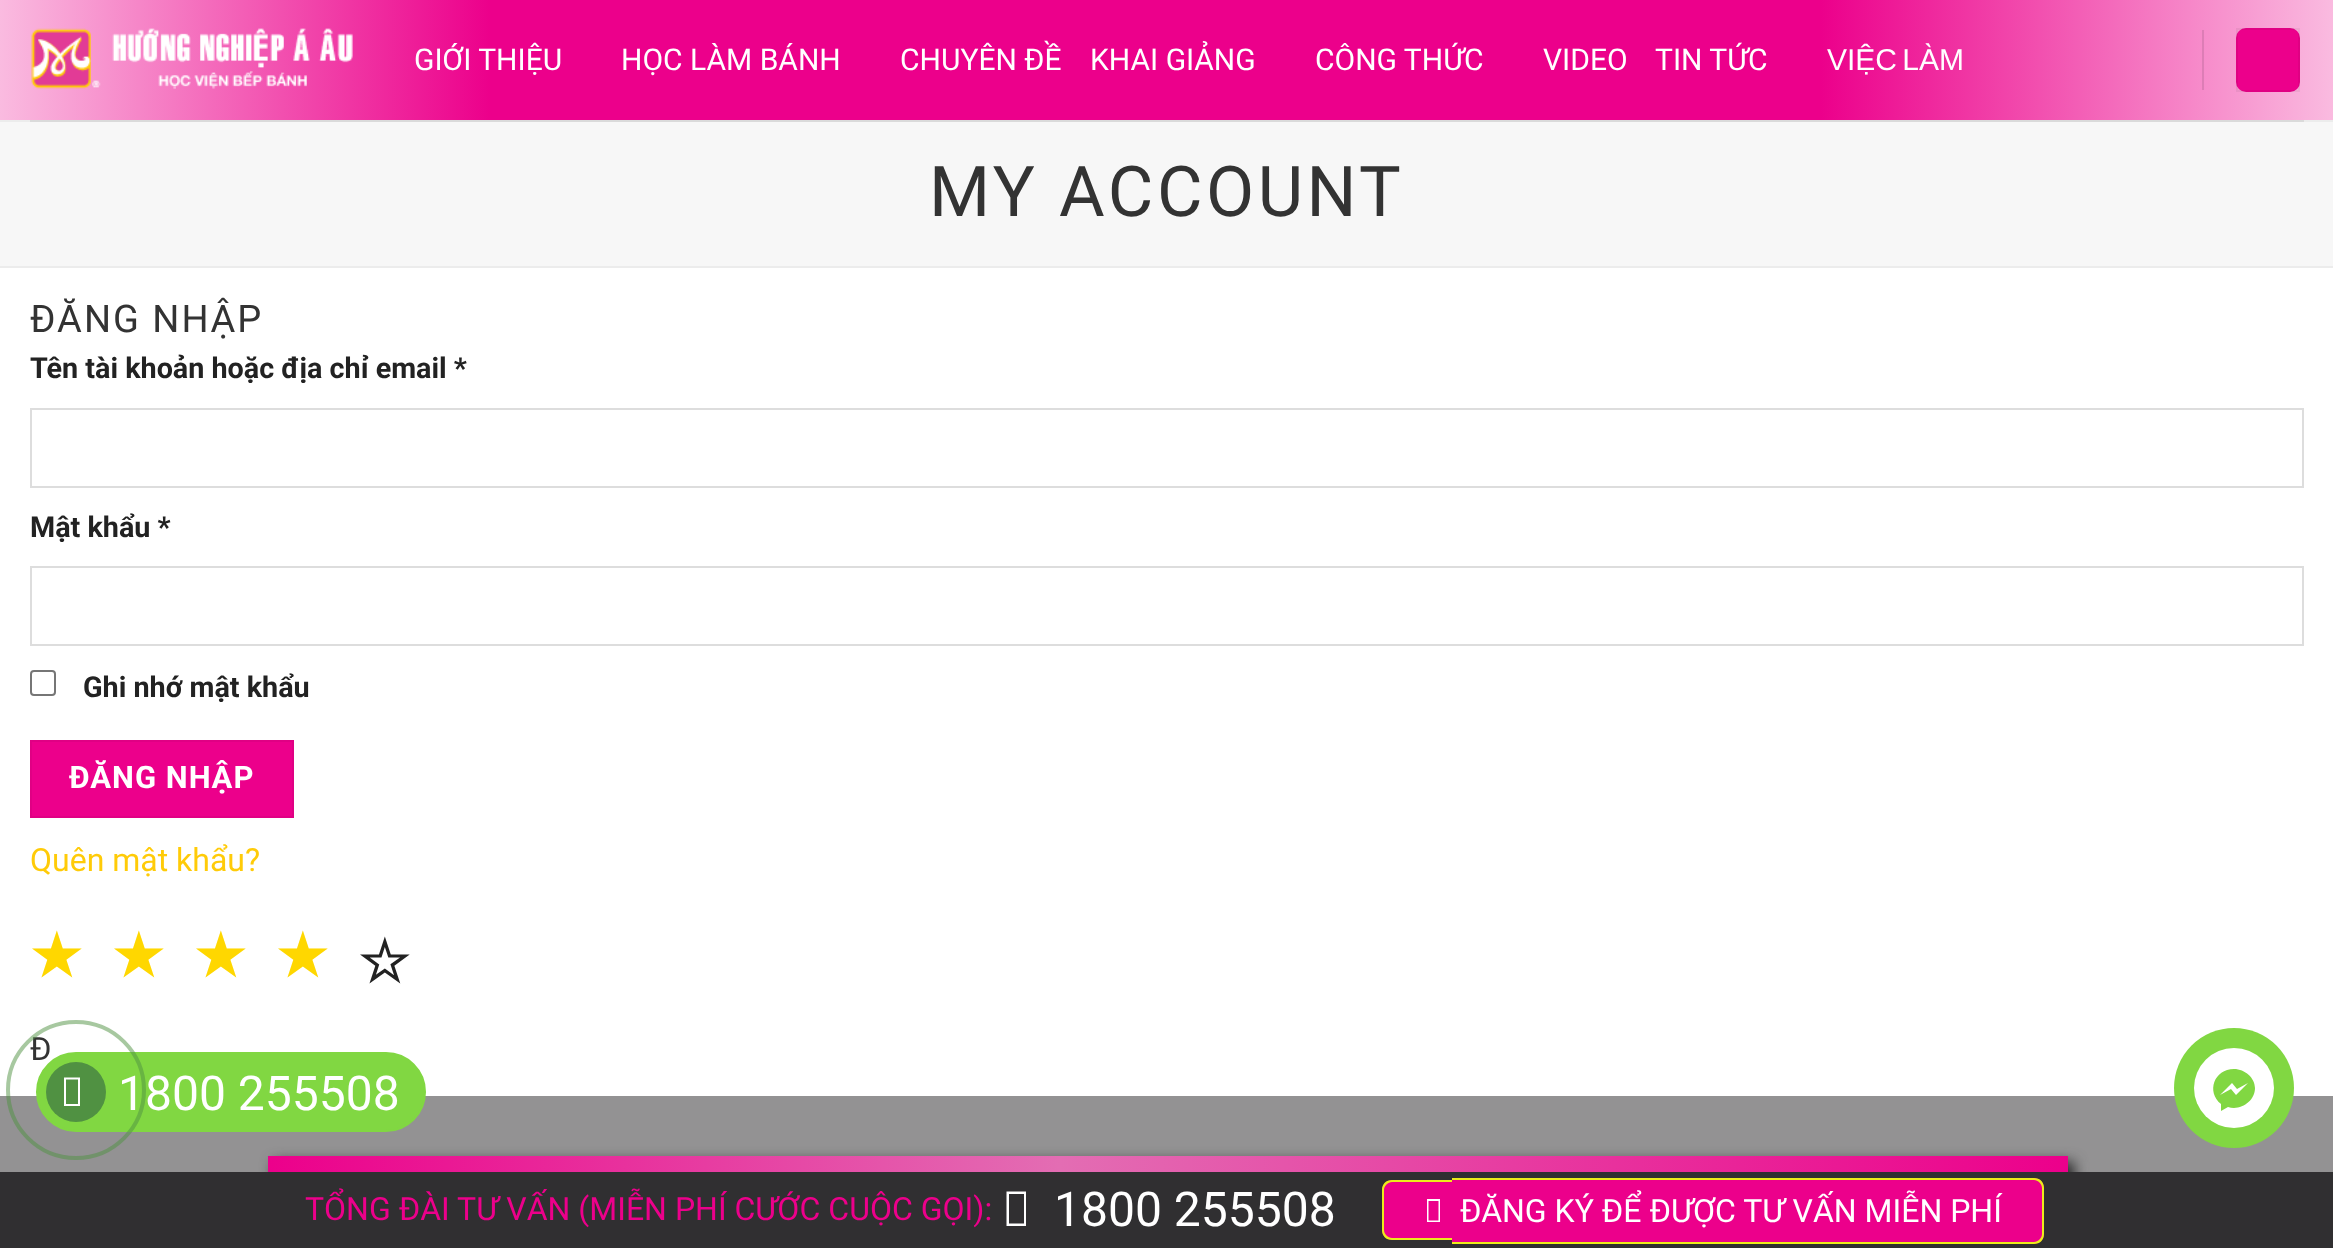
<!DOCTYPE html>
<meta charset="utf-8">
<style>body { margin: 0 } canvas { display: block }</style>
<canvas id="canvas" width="2333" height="1248"></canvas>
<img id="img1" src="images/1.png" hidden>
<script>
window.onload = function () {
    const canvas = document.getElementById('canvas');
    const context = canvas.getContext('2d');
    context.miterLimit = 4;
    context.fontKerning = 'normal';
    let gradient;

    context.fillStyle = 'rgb(255, 255, 255)';
    context.fillRect(0, 0, 2333, 1248);
    gradient = context.createLinearGradient(0, 60, 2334, 60);
    gradient.addColorStop(0, 'rgb(250, 187, 224)');
    gradient.addColorStop(0.21, 'rgb(236, 0, 139)');
    gradient.addColorStop(0.78, 'rgb(236, 0, 139)');
    gradient.addColorStop(1, 'rgb(250, 187, 224)');
    context.fillStyle = gradient;
    context.fillRect(0, 0, 2333, 120);
    context.drawImage(document.getElementById('img1'), 31, 28, 322, 61);
    context.fillStyle = 'rgb(221, 125, 182)';
    context.fillRect(2202, 30, 2, 60);
    context.fillStyle = 'rgb(236, 0, 139)';
    context.beginPath();
    context.roundRect(2236, 28, 64, 64, 10);
    context.fill();
    context.strokeStyle = 'rgba(0, 0, 0, 0.05)';
    context.lineWidth = 2;
    context.strokeRect(2237, 29, 62, 62);
    context.fillStyle = 'rgb(236, 236, 236)';
    context.fillRect(0, 120, 2333, 2);
    context.fillStyle = 'rgb(218, 218, 218)';
    context.fillRect(30, 120, 2274, 2);
    context.fillStyle = 'rgb(247, 247, 247)';
    context.fillRect(0, 122, 2333, 144);
    context.fillStyle = 'rgb(236, 236, 236)';
    context.fillRect(0, 266, 2333, 2);
    context.strokeStyle = 'rgb(221, 221, 221)';
    context.strokeRect(31, 409, 2272, 78);
    context.strokeRect(31, 567, 2272, 78);
    context.beginPath();
    context.roundRect(31, 671, 24, 24, 3);
    context.strokeStyle = 'rgb(118, 118, 118)';
    context.stroke();
    context.fillStyle = 'rgb(236, 0, 139)';
    context.beginPath();
    context.rect(31, 741, 262, 76);
    context.fill();
    context.strokeStyle = 'rgb(224, 0, 132)';
    context.stroke();
    context.fillStyle = 'rgb(147, 146, 147)';
    context.fillRect(0, 1096, 2333, 76);
    context.fillStyle = 'rgb(34, 34, 34)';
    context.filter = 'blur(7px)';
    context.beginPath();
    context.rect(274, 1162, 1800, 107);
    context.fill();
    context.filter = 'none';
    gradient = context.createLinearGradient(-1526, 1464, 270, 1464);
    gradient.addColorStop(0, 'rgb(236, 0, 139)');
    gradient.addColorStop(0.44, 'rgb(227, 109, 179)');
    gradient.addColorStop(1, 'rgb(236, 0, 139)');
    context.fillStyle = gradient;
    context.fillRect(268, 1156, 2, 16);
    gradient = context.createLinearGradient(270, 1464, 2066, 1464);
    gradient.addColorStop(0, 'rgb(236, 0, 139)');
    gradient.addColorStop(0.44, 'rgb(227, 109, 179)');
    gradient.addColorStop(1, 'rgb(236, 0, 139)');
    context.fillStyle = gradient;
    context.fillRect(270, 1156, 1796, 16);
    gradient = context.createLinearGradient(2066, 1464, 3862, 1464);
    gradient.addColorStop(0, 'rgb(236, 0, 139)');
    gradient.addColorStop(0.44, 'rgb(227, 109, 179)');
    gradient.addColorStop(1, 'rgb(236, 0, 139)');
    context.fillStyle = gradient;
    context.fillRect(2066, 1156, 2, 16);
    context.fillStyle = 'rgb(48, 47, 49)';
    context.fillRect(0, 1172, 2333, 76);
    context.fillStyle = 'rgb(255, 255, 255)';
    context.beginPath();
    context.moveTo(1006.5, 1226);
    context.lineTo(1006.5, 1191.5);
    context.lineTo(1026, 1191.5);
    context.lineTo(1026, 1226);
    context.closePath();
    context.moveTo(1009, 1223.5);
    context.lineTo(1024, 1223.5);
    context.lineTo(1024, 1194);
    context.lineTo(1009, 1194);
    context.closePath();
    context.fill();
    context.fillStyle = 'rgb(236, 0, 139)';
    context.beginPath();
    context.roundRect(1382, 1180, 70, 60, [10, 0, 0, 10]);
    context.fill();
    context.fillStyle = 'rgb(236, 236, 26)';
    context.beginPath();
    context.moveTo(1392, 1180);
    context.lineTo(1452, 1180);
    context.lineTo(1452, 1240);
    context.lineTo(1392, 1240);
    context.bezierCurveTo(1386, 1240, 1382, 1236, 1382, 1230);
    context.lineTo(1382, 1190);
    context.bezierCurveTo(1382, 1184, 1386, 1180, 1392, 1180);
    context.closePath();
    context.moveTo(1392, 1182);
    context.lineTo(1452, 1182);
    context.lineTo(1452, 1238);
    context.lineTo(1392, 1238);
    context.bezierCurveTo(1388, 1238, 1384, 1234, 1384, 1230);
    context.lineTo(1384, 1190);
    context.bezierCurveTo(1384, 1186, 1388, 1182, 1392, 1182);
    context.closePath();
    context.fill('evenodd');
    context.fillStyle = 'rgb(236, 0, 139)';
    context.beginPath();
    context.roundRect(1452, 1178, 592, 66, [0, 10, 10, 0]);
    context.fill();
    context.fillStyle = 'rgb(236, 236, 26)';
    context.beginPath();
    context.moveTo(1452, 1178);
    context.lineTo(2034, 1178);
    context.bezierCurveTo(2040, 1178, 2044, 1182, 2044, 1188);
    context.lineTo(2044, 1234);
    context.bezierCurveTo(2044, 1240, 2040, 1244, 2034, 1244);
    context.lineTo(1452, 1244);
    context.closePath();
    context.moveTo(1452, 1180);
    context.lineTo(2034, 1180);
    context.bezierCurveTo(2038, 1180, 2042, 1184, 2042, 1188);
    context.lineTo(2042, 1234);
    context.bezierCurveTo(2042, 1238, 2038, 1242, 2034, 1242);
    context.lineTo(1452, 1242);
    context.closePath();
    context.fill('evenodd');
    context.fillStyle = 'rgb(255, 255, 255)';
    context.beginPath();
    context.moveTo(1427, 1222);
    context.lineTo(1427, 1199);
    context.lineTo(1440, 1199);
    context.lineTo(1440, 1222);
    context.closePath();
    context.moveTo(1428.5, 1220.5);
    context.lineTo(1438.5, 1220.5);
    context.lineTo(1438.5, 1201);
    context.lineTo(1428.5, 1201);
    context.closePath();
    context.fill();
    context.fillStyle = 'rgb(129, 215, 66)';
    context.beginPath();
    context.arc(2234, 1088, 60, 0, 2 * Math.PI);
    context.fill();
    context.fillStyle = 'rgb(255, 255, 255)';
    context.beginPath();
    context.arc(2234, 1088, 40, 0, 2 * Math.PI);
    context.fill();
    context.fillStyle = 'rgb(129, 215, 66)';
    context.beginPath();
    context.moveTo(2234, 1069);
    context.bezierCurveTo(2214, 1069, 2206, 1092, 2221, 1104);
    context.lineTo(2221, 1111);
    context.lineTo(2228, 1107);
    context.bezierCurveTo(2241, 1111, 2255, 1101, 2255, 1088);
    context.bezierCurveTo(2255, 1078, 2245, 1069, 2234, 1069);
    context.closePath();
    context.moveTo(2236, 1095);
    context.lineTo(2231, 1089);
    context.lineTo(2220, 1095);
    context.lineTo(2232, 1083);
    context.lineTo(2237, 1089);
    context.lineTo(2248, 1083);
    context.closePath();
    context.fill();
    context.font = '30px Roboto';
    context.fillStyle = 'rgb(255, 255, 255)';
    context.fillText('GIỚI THIỆU', 414, 70);
    context.fillText('HỌC LÀM BÁNH', 621, 70);
    context.fillText('CHUYÊN ĐỀ', 900, 70);
    context.fillText('KHAI GIẢNG', 1090, 70);
    context.fillText('CÔNG THỨC', 1315, 70);
    context.fillText('VIDEO', 1543, 70);
    context.fillText('TIN TỨC', 1655, 70);
    context.wordSpacing = '-3px';
    context.font = '30px Liberation Sans';
    context.fillText('VIỆC LÀM', 1827, 70);
    context.letterSpacing = '3.5px';
    context.wordSpacing = '0px';
    context.font = '70px Roboto';
    context.fillStyle = 'rgb(51, 51, 51)';
    context.fillText('MY ACCOUNT', 929, 216);
    context.letterSpacing = '2px';
    context.font = '38px Roboto';
    context.fillText('ĐĂNG NHẬP', 30, 332);
    context.letterSpacing = '0px';
    context.font = 'bold 28.75px Roboto';
    context.fillStyle = 'rgb(34, 34, 34)';
    context.fillText('Tên tài khoản hoặc địa chỉ email *', 30, 378);
    context.fillText('Mật khẩu *', 30, 537);
    context.fillText('Ghi nhớ mật khẩu', 83, 697);
    context.letterSpacing = '1px';
    context.font = 'bold 31px Roboto';
    context.fillStyle = 'rgb(255, 255, 255)';
    context.fillText('ĐĂNG NHẬP', 69, 788);
    context.letterSpacing = '0px';
    context.font = '32px Roboto';
    context.fillStyle = 'rgb(255, 203, 8)';
    context.fillText('Quên mật khẩu?', 30, 871);
    context.font = 'bold 58px DejaVu Sans';
    context.fillStyle = 'rgb(255, 215, 0)';
    context.fillText('★', 30, 976);
    context.fillText('★', 112, 976);
    context.fillText('★', 194, 976);
    context.fillText('★', 276, 976);
    context.fillStyle = 'rgb(34, 34, 34)';
    context.fillText('☆', 358, 982);
    context.font = '32px Roboto';
    context.fillStyle = 'rgb(51, 51, 51)';
    context.fillText('Đ', 30, 1060);
    context.fillStyle = 'rgb(129, 215, 66)';
    context.beginPath();
    context.roundRect(37, 1053, 388, 78, 39);
    context.fill();
    context.strokeStyle = 'rgb(129, 215, 66)';
    context.stroke();
    context.font = '48px Roboto';
    context.fillStyle = 'rgb(255, 255, 255)';
    context.fillText('1800 255508', 118, 1110);
    context.beginPath();
    context.arc(76, 1090, 68, 0, 2 * Math.PI);
    context.strokeStyle = 'rgba(80, 145, 66, 0.5)';
    context.lineWidth = 4;
    context.stroke();
    context.fillStyle = 'rgb(80, 145, 66)';
    context.beginPath();
    context.arc(76, 1092, 30, 0, 2 * Math.PI);
    context.fill();
    context.fillStyle = 'rgb(255, 255, 255)';
    context.beginPath();
    context.moveTo(64, 1106);
    context.lineTo(64, 1077.5);
    context.lineTo(80, 1077.5);
    context.lineTo(80, 1106);
    context.closePath();
    context.moveTo(66, 1104);
    context.lineTo(78, 1104);
    context.lineTo(78, 1079.5);
    context.lineTo(66, 1079.5);
    context.closePath();
    context.fill();
    context.font = '32px Roboto';
    context.fillStyle = 'rgb(236, 0, 139)';
    context.fillText('TỔNG ĐÀI TƯ VẤN (MIỄN PHÍ CƯỚC CUỘC GỌI):', 305, 1220);
    context.font = '48px Roboto';
    context.fillStyle = 'rgb(255, 255, 255)';
    context.fillText('1800 255508', 1054, 1226);
    context.font = '32px Roboto';
    context.fillText('ĐĂNG KÝ ĐỂ ĐƯỢC TƯ VẤN MIỄN PHÍ', 1460, 1222);
};
</script>
